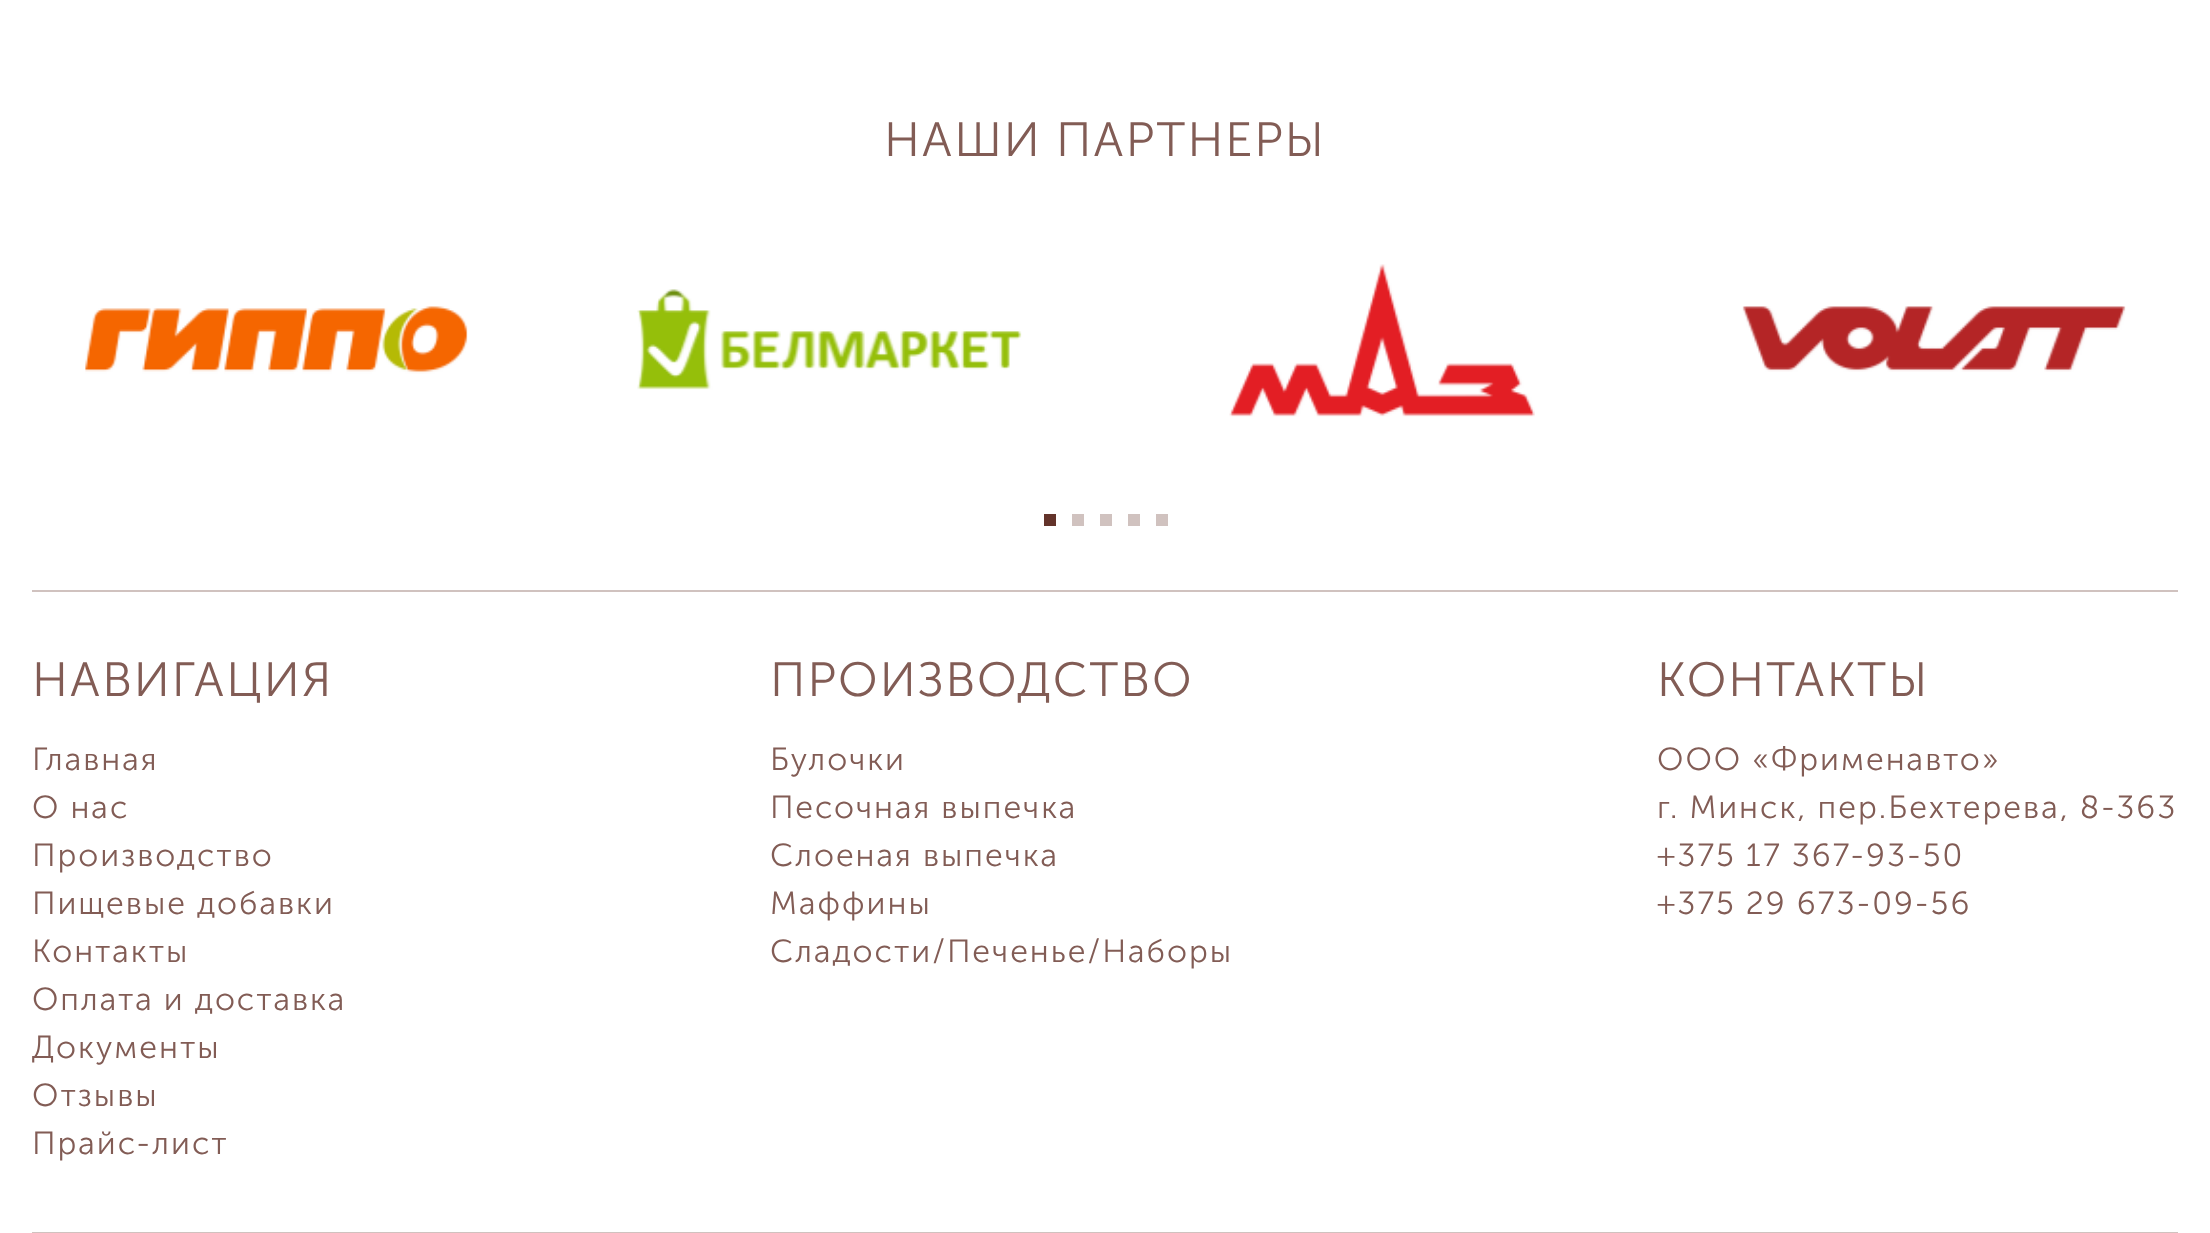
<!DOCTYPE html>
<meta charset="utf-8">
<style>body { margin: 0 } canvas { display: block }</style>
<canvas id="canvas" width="2210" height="1233"></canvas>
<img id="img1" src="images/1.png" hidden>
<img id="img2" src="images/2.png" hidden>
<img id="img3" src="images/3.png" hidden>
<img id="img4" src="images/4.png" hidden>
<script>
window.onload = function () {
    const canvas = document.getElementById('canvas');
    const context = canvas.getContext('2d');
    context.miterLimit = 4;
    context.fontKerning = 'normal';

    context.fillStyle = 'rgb(255, 255, 255)';
    context.fillRect(0, 0, 2210, 1233);
    context.drawImage(document.getElementById('img1'), 85, 306, 383, 68);
    context.drawImage(document.getElementById('img2'), 637, 289, 385, 101);
    context.drawImage(document.getElementById('img3'), 1229, 264, 306, 153);
    context.drawImage(document.getElementById('img4'), 1742, 306, 384, 66);
    context.fillStyle = 'rgb(99, 51, 42)';
    context.fillRect(1044, 514, 12, 12);
    context.fillStyle = 'rgb(208, 194, 191)';
    context.fillRect(1072, 514, 12, 12);
    context.fillRect(1100, 514, 12, 12);
    context.fillRect(1128, 514, 12, 12);
    context.fillRect(1156, 514, 12, 12);
    context.fillRect(32, 590, 2146, 2);
    context.fillRect(32, 1232, 2146, 1);
    context.letterSpacing = '2px';
    context.font = '300 48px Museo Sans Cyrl';
    context.fillStyle = 'rgb(130, 92, 85)';
    context.fillText('НАШИ ПАРТНЕРЫ', 884, 156);
    context.fillText('НАВИГАЦИЯ', 32, 696);
    context.font = '300 32px Museo Sans Cyrl';
    context.fillText('Главная', 32, 770);
    context.fillText('О нас', 32, 818);
    context.fillText('Производство', 32, 866);
    context.fillText('Пищевые добавки', 32, 914);
    context.fillText('Контакты', 32, 962);
    context.fillText('Оплата и доставка', 32, 1010);
    context.fillText('Документы', 32, 1058);
    context.fillText('Отзывы', 32, 1106);
    context.fillText('Прайс-лист', 32, 1154);
    context.font = '300 48px Museo Sans Cyrl';
    context.fillText('ПРОИЗВОДСТВО', 770, 696);
    context.font = '300 32px Museo Sans Cyrl';
    context.fillText('Булочки', 770, 770);
    context.fillText('Песочная выпечка', 770, 818);
    context.fillText('Слоеная выпечка', 770, 866);
    context.fillText('Маффины', 770, 914);
    context.fillText('Сладости/Печенье/Наборы', 770, 962);
    context.font = '300 48px Museo Sans Cyrl';
    context.fillText('КОНТАКТЫ', 1657, 696);
    context.font = '300 32px Museo Sans Cyrl';
    context.fillText('ООО «Фрименавто»', 1657, 770);
    context.fillText('г. Минск, пер.Бехтерева, 8-363', 1657, 818);
    context.fillText('+375 17 367-93-50', 1657, 866);
    context.fillText('+375 29 673-09-56', 1657, 914);
};
</script>
